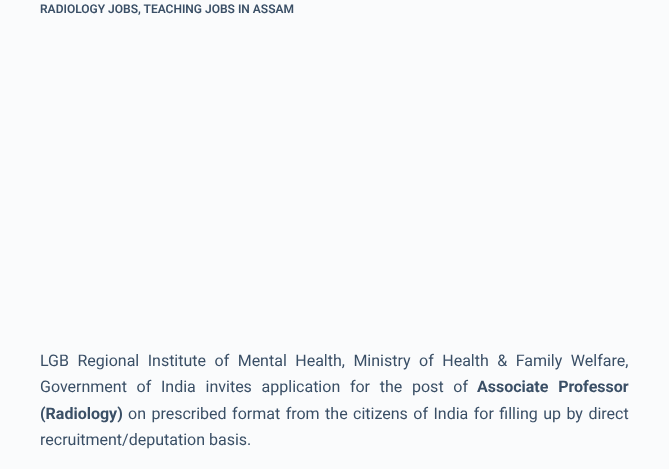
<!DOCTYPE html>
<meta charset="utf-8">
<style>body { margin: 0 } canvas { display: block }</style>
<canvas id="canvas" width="669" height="469"></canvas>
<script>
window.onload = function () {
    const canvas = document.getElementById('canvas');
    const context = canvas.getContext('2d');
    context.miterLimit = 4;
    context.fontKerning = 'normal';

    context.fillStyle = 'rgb(250, 251, 252)';
    context.fillRect(0, 0, 669, 469);
    context.font = '600 12px Roboto';
    context.fillStyle = 'rgb(58, 79, 102)';
    context.fillText('RADIOLOGY JOBS, TEACHING JOBS IN ASSAM', 40, 13);
    context.wordSpacing = '4.5px';
    context.font = '16px Roboto';
    context.fillText('LGB Regional Institute of Mental Health, Ministry of Health & Family Welfare,', 40, 366);
    context.wordSpacing = '5.75px';
    context.fillText('Government of India invites application for the post of', 40, 392);
    context.font = 'bold 16px Roboto';
    context.fillText('Associate Professor', 477, 392);
    context.wordSpacing = '0px';
    context.fillText('(Radiology)', 40, 419);
    context.wordSpacing = '1.5px';
    context.font = '16px Roboto';
    context.fillText('on prescribed format from the citizens of India for filling up by direct', 128, 419);
    context.wordSpacing = '0px';
    context.fillText('recruitment/deputation basis.', 40, 445);
};
</script>
